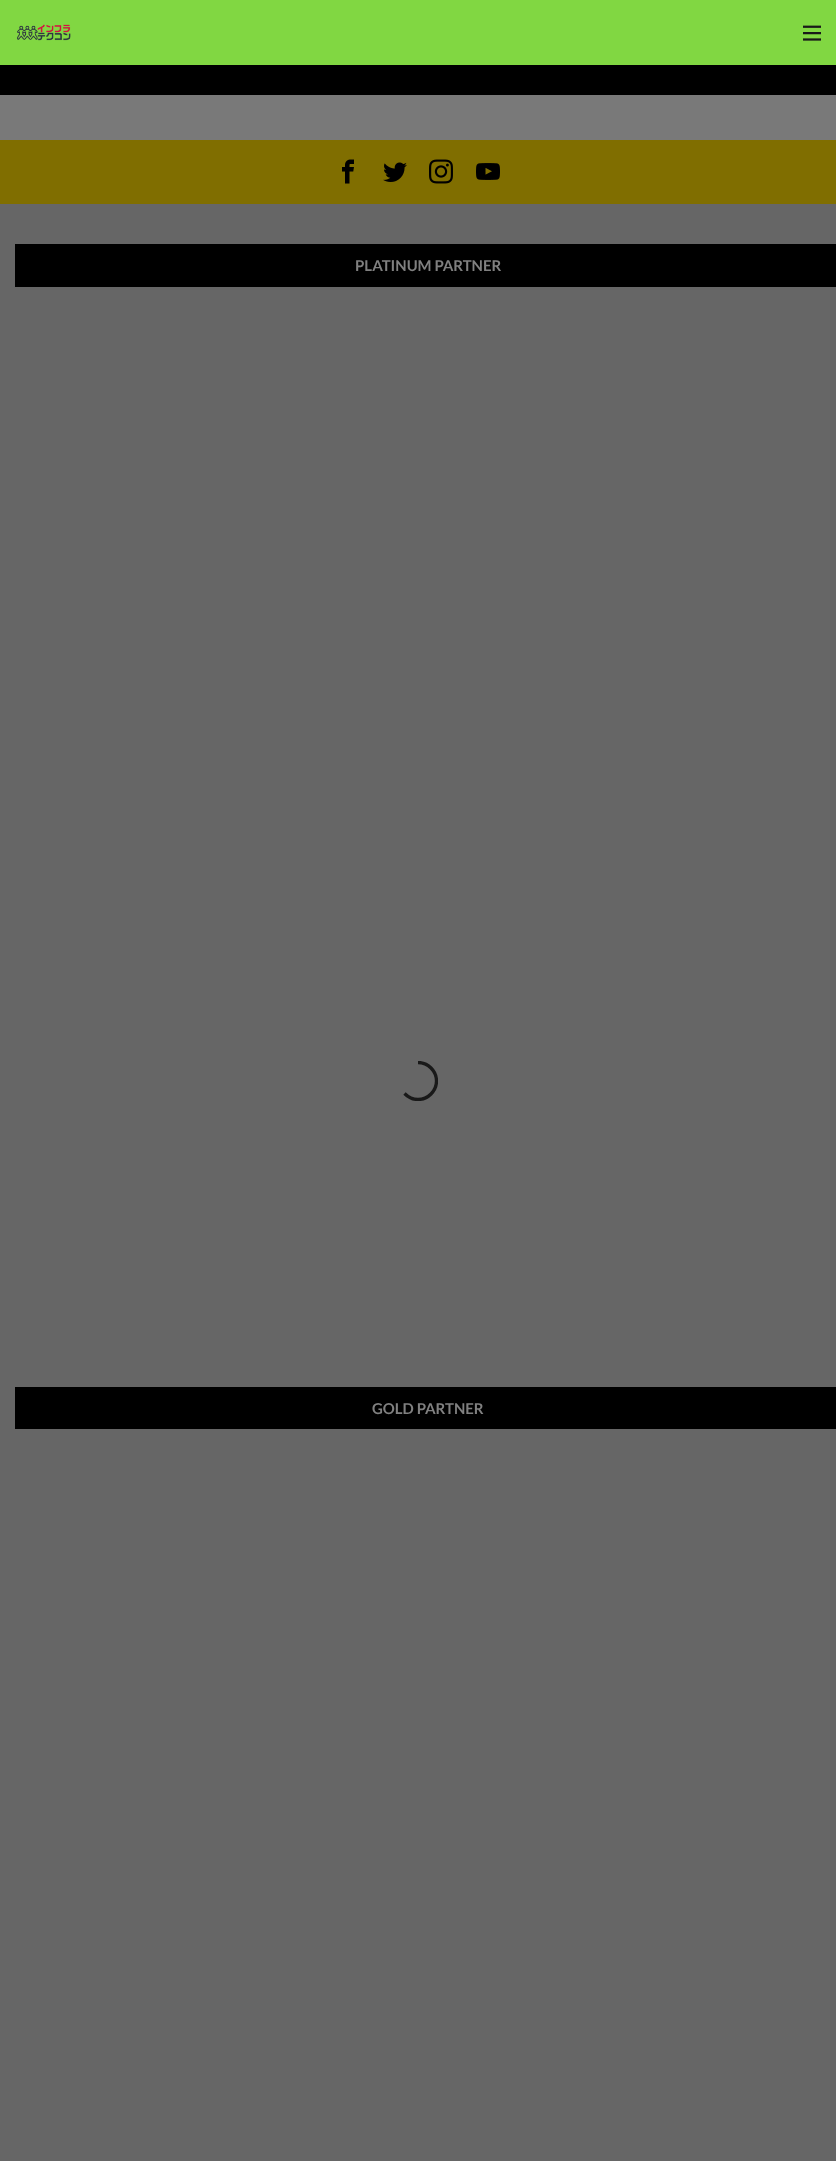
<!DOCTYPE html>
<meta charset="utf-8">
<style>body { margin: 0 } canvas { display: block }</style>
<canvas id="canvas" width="836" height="2161"></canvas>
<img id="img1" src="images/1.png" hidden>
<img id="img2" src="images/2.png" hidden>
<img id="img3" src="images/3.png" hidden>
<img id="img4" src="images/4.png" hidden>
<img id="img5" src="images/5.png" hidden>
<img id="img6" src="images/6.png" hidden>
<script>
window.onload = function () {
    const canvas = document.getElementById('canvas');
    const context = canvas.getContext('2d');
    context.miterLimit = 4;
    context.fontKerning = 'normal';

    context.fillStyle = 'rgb(121, 121, 121)';
    context.fillRect(0, 0, 836, 2161);
    context.fillStyle = 'rgb(129, 215, 66)';
    context.fillRect(0, 0, 836, 65);
    context.drawImage(document.getElementById('img1'), 17, 24, 54, 17);
    context.drawImage(document.getElementById('img2'), 803, 25, 18, 16);
    context.fillStyle = 'rgb(0, 0, 0)';
    context.fillRect(0, 65, 836, 30);
    context.fillStyle = 'rgb(102, 102, 102)';
    context.fillRect(0, 204, 836, 1957);
    context.fillStyle = 'rgb(128, 110, 0)';
    context.fillRect(0, 140, 836, 64);
    context.drawImage(document.getElementById('img3'), 342, 159, 12, 25);
    context.drawImage(document.getElementById('img4'), 383, 162, 24, 20);
    context.drawImage(document.getElementById('img5'), 429, 159, 24, 25);
    context.drawImage(document.getElementById('img6'), 476, 163, 24, 17);
    context.fillStyle = 'rgb(0, 0, 0)';
    context.fillRect(15, 244, 821, 43);
    context.fillRect(15, 1387, 821, 42);
    context.save();
    context.beginPath();
    context.rect(398, 1061, 40, 40);
    context.clip();
    context.beginPath();
    context.moveTo(418, 1062.5);
    context.bezierCurveTo(428, 1062.5, 436.5, 1071, 436.5, 1081);
    context.bezierCurveTo(436.5, 1091, 428, 1099.5, 418, 1099.5);
    context.bezierCurveTo(412.5, 1099.5, 408, 1097, 404.5, 1093.5);
    context.strokeStyle = 'rgb(25, 25, 25)';
    context.lineWidth = 3.3;
    context.stroke();
    context.restore();
    context.font = 'bold 15px Lato';
    context.fillStyle = 'rgb(128, 128, 128)';
    context.fillText('PLATINUM PARTNER', 355, 271);
    context.fillText('GOLD PARTNER', 372, 1414);
};
</script>
